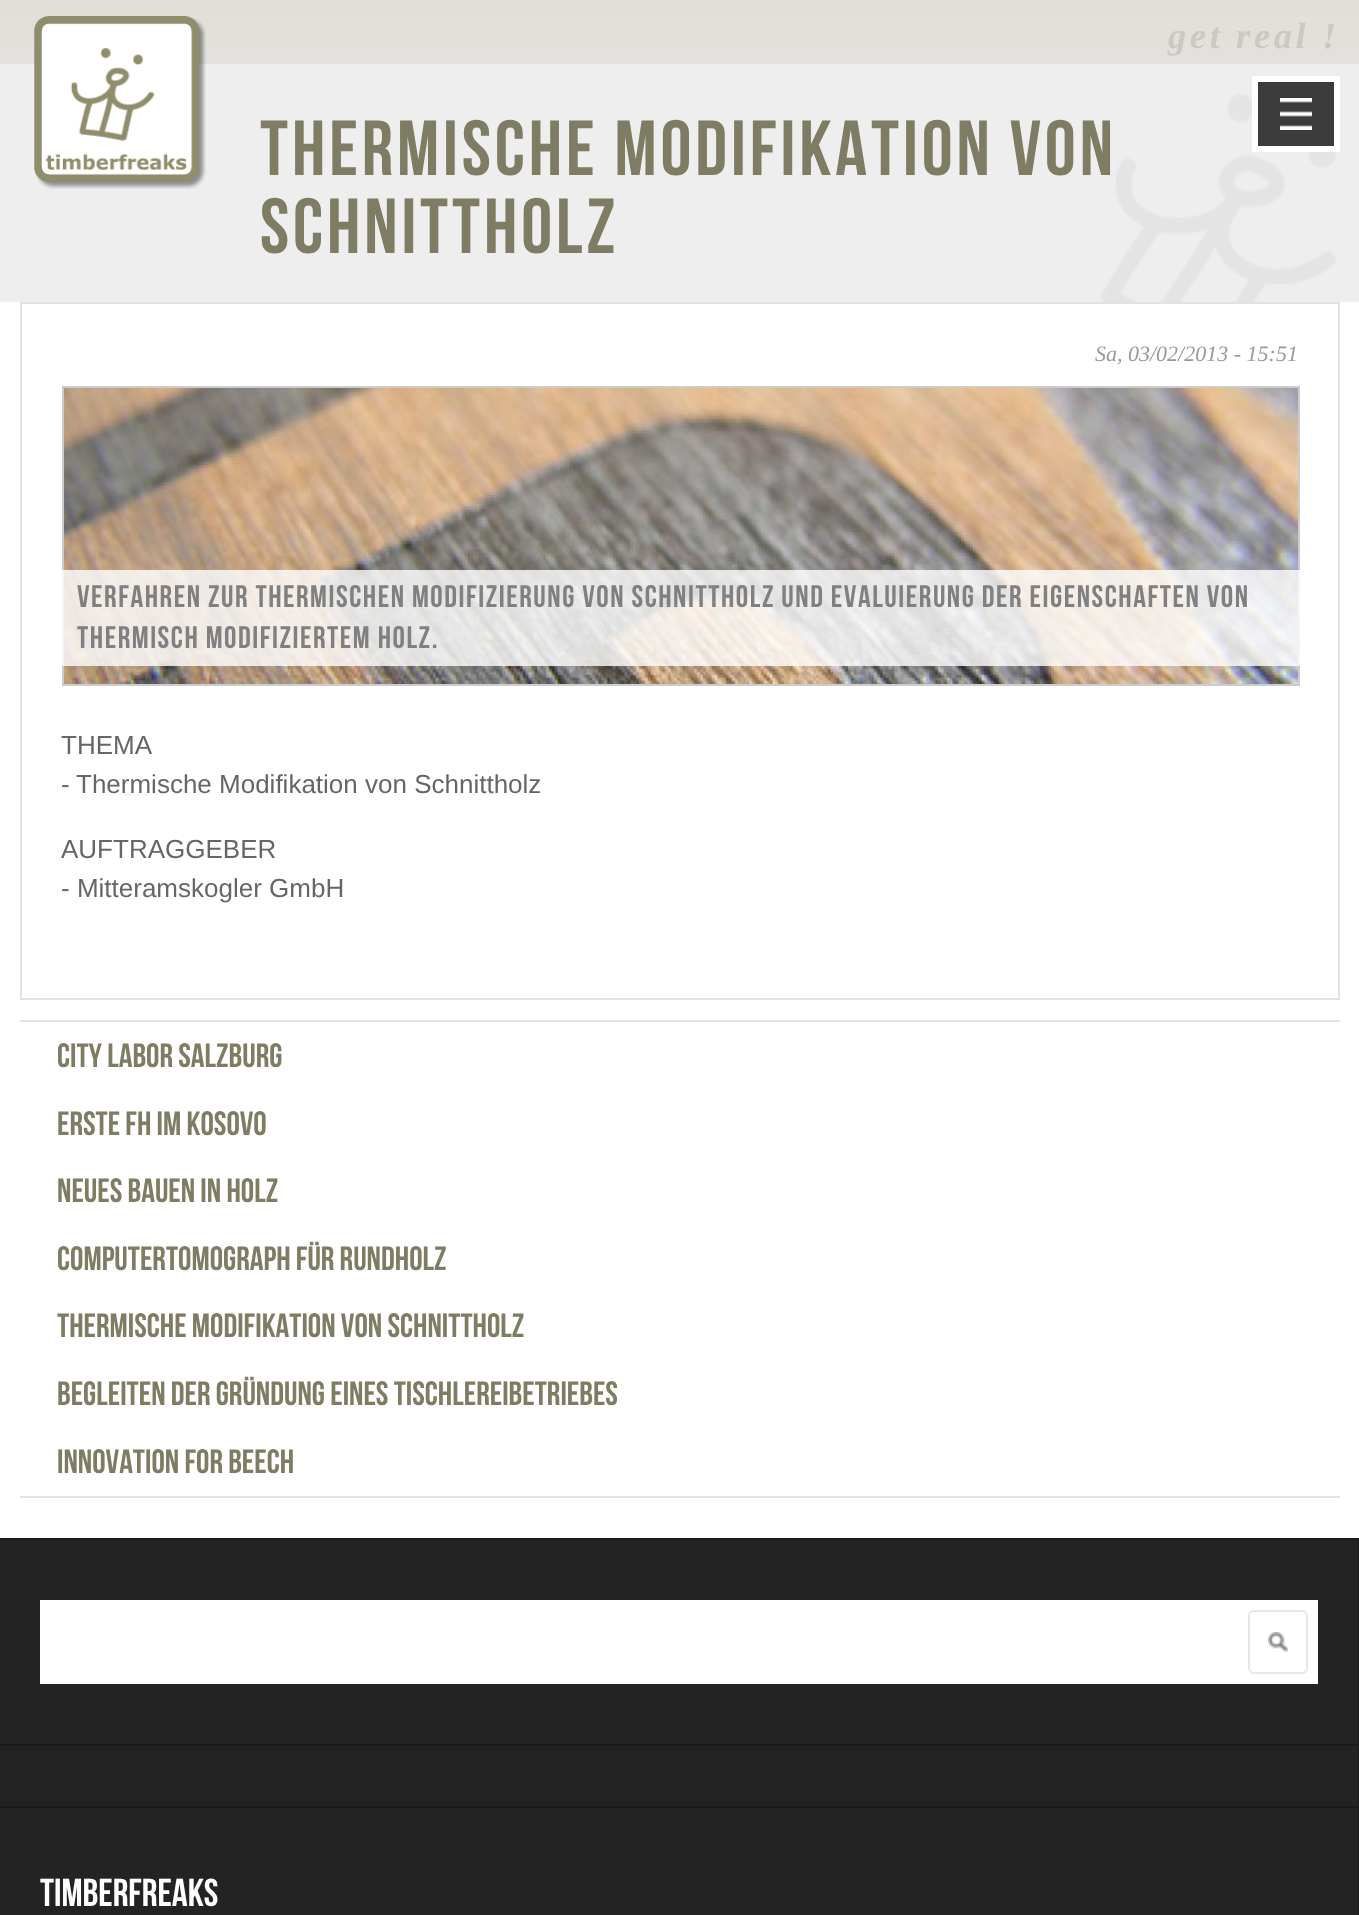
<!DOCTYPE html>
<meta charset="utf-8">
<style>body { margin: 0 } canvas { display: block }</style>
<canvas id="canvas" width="1359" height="1915"></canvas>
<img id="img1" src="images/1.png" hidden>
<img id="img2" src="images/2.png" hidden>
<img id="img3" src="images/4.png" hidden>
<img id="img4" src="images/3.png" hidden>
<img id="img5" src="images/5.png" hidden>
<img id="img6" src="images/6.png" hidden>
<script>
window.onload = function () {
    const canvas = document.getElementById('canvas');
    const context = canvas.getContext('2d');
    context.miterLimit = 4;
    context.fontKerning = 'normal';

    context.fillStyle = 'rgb(255, 255, 255)';
    context.fillRect(0, 0, 1359, 1915);
    context.drawImage(document.getElementById('img1'), 0, 0, 1359, 64);
    context.fillStyle = 'rgb(238, 238, 238)';
    context.fillRect(0, 64, 1359, 238);
    context.drawImage(document.getElementById('img2'), 34, 16, 172, 173);
    context.drawImage(document.getElementById('img3'), 1100, 94, 236, 208);
    context.fillStyle = 'rgb(59, 59, 59)';
    context.fillRect(1258, 82, 76, 64);
    context.drawImage(document.getElementById('img4'), 1280, 98, 32, 32);
    context.strokeStyle = 'rgb(255, 255, 255)';
    context.lineWidth = 6;
    context.strokeRect(1255, 79, 82, 70);
    context.strokeStyle = 'rgb(226, 226, 226)';
    context.lineWidth = 2;
    context.strokeRect(21, 303, 1318, 696);
    context.strokeStyle = 'rgb(204, 204, 204)';
    context.strokeRect(63, 387, 1236, 298);
    context.drawImage(document.getElementById('img5'), 64, 388, 1234, 296);
    context.fillStyle = 'rgba(255, 255, 255, 0.8)';
    context.fillRect(62, 570, 1238, 96);
    context.fillStyle = 'rgb(226, 226, 226)';
    context.fillRect(20, 1020, 1320, 2);
    context.fillRect(20, 1496, 1320, 2);
    context.fillStyle = 'rgb(35, 35, 35)';
    context.fillRect(0, 1540, 1358, 375);
    context.fillStyle = 'rgb(26, 26, 26)';
    context.fillRect(0, 1538, 1359, 2);
    context.fillRect(1358, 1538, 1, 268);
    context.fillRect(0, 1744, 1358, 2);
    context.fillStyle = 'rgb(255, 255, 255)';
    context.fillRect(40, 1600, 1278, 84);
    context.drawImage(document.getElementById('img6'), 1268, 1632, 20, 20);
    context.beginPath();
    context.roundRect(1249, 1611, 58, 62, 5);
    context.strokeStyle = 'rgb(230, 231, 232)';
    context.stroke();
    context.fillStyle = 'rgb(26, 26, 26)';
    context.fillRect(0, 1806, 1359, 2);
    context.fillRect(1358, 1806, 1, 109);
    context.letterSpacing = '3.6px';
    context.font = 'italic bold 36.5px Liberation Serif';
    context.fillStyle = 'rgb(203, 201, 192)';
    context.fillText('get real !', 1168, 48);
    context.letterSpacing = '3.9px';
    context.font = '78px Bebas Neue';
    context.fillStyle = 'rgb(126, 124, 99)';
    context.fillText('Thermische Modifikation von', 260, 175);
    context.fillText('Schnittholz', 260, 253);
    context.letterSpacing = '0px';
    context.font = 'italic 22px Liberation Serif';
    context.fillStyle = 'rgb(153, 153, 153)';
    context.fillText('Sa, 03/02/2013 - 15:51', 1095, 361);
    context.letterSpacing = '1.55px';
    context.font = '31.2px Bebas Neue';
    context.fillStyle = 'rgb(129, 128, 128)';
    context.fillText('Verfahren zur thermischen Modifizierung von Schnittholz und Evaluierung der Eigenschaften von', 77, 607);
    context.fillText('thermisch modifiziertem Holz.', 77, 648);
    context.letterSpacing = '0px';
    context.font = '26px Liberation Sans';
    context.fillStyle = 'rgb(102, 102, 102)';
    context.fillText('THEMA', 61, 754);
    context.fillText('-', 61, 793);
    context.fillText('Thermische Modifikation von Schnittholz', 76, 793);
    context.fillText('AUFTRAGGEBER', 61, 858);
    context.fillText('- Mitteramskogler GmbH', 61, 897);
    context.font = '33.75px Bebas Neue';
    context.fillStyle = 'rgb(126, 124, 99)';
    context.fillText('City Labor Salzburg', 57, 1067);
    context.fillText('Erste FH im Kosovo', 57, 1135);
    context.fillText('Neues Bauen in Holz', 57, 1202);
    context.fillText('Computertomograph für Rundholz', 57, 1270);
    context.fillText('Thermische Modifikation von Schnittholz', 57, 1337);
    context.fillText('Begleiten der Gründung eines Tischlereibetriebes', 57, 1405);
    context.fillText('Innovation for Beech', 57, 1473);
    context.font = '39px Bebas Neue';
    context.fillStyle = 'rgb(255, 255, 255)';
    context.fillText('Timberfreaks', 40, 1906);
};
</script>
